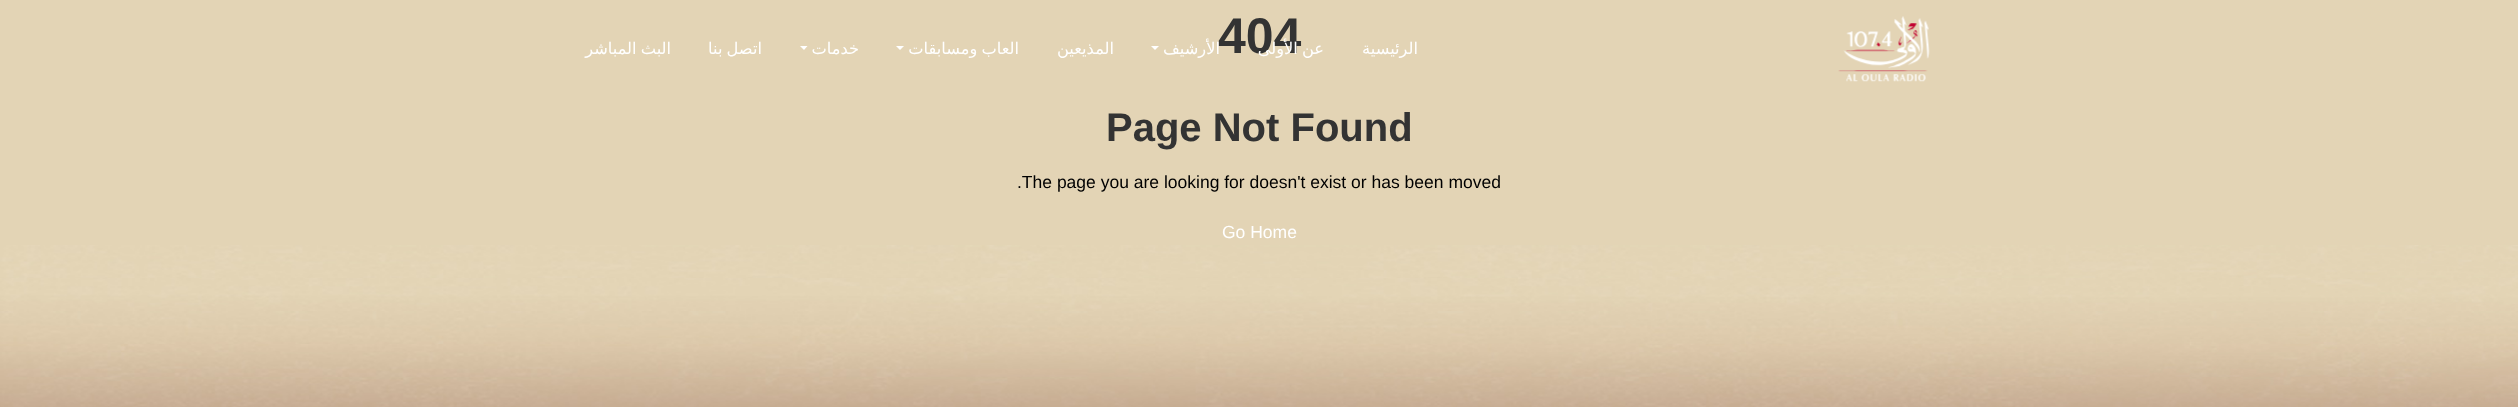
<!DOCTYPE html>
<meta charset="utf-8">
<style>body { margin: 0 } canvas { display: block }</style>
<canvas id="canvas" width="2518" height="407"></canvas>
<img id="img1" src="images/1.png" hidden>
<img id="img2" src="images/2.png" hidden>
<script>
window.onload = function () {
    const canvas = document.getElementById('canvas');
    const context = canvas.getContext('2d');
    context.miterLimit = 4;
    context.fontKerning = 'normal';

    context.fillStyle = 'rgb(227, 212, 181)';
    context.fillRect(0, 0, 2518, 407);
    context.fillStyle = 'rgb(255, 255, 255)';
    context.beginPath();
    context.moveTo(800, 46);
    context.lineTo(807.5, 46);
    context.lineTo(804, 50);
    context.closePath();
    context.fill();
    context.beginPath();
    context.moveTo(896, 46);
    context.lineTo(904, 46);
    context.lineTo(900, 50);
    context.closePath();
    context.fill();
    context.beginPath();
    context.moveTo(1151, 46);
    context.lineTo(1159, 46);
    context.lineTo(1155, 50);
    context.closePath();
    context.fill();
    context.drawImage(document.getElementById('img1'), 1838, 16, 92, 66);
    context.drawImage(document.getElementById('img2'), 0, 245, 2518, 162);
    context.font = 'bold 50px Liberation Sans';
    context.fillStyle = 'rgb(51, 51, 51)';
    context.fillText('404', 1218, 53);
    context.font = 'bold 40px Liberation Sans';
    context.fillText('Page Not Found', 1106, 141);
    context.font = '17.5px Liberation Sans';
    context.fillStyle = 'rgb(0, 0, 0)';
    context.fillText('.The page you are looking for doesn\'t exist or has been moved', 1017, 188);
    context.fillStyle = 'rgb(255, 255, 255)';
    context.fillText('Go Home', 1222, 238);
    context.wordSpacing = '-1px';
    context.direction = 'rtl';
    context.font = '16.25px DejaVu Sans';
    context.fillText('البث المباشر', 671, 54);
    context.fillText('اتصل بنا', 762, 54);
    context.wordSpacing = '0px';
    context.fillText('خدمات', 859, 54);
    context.wordSpacing = '-1px';
    context.fillText('العاب ومسابقات', 1019, 54);
    context.wordSpacing = '0px';
    context.fillText('المذيعين', 1114, 54);
    context.fillText('الأرشيف', 1220, 54);
    context.wordSpacing = '-1px';
    context.fillText('عن الأولى', 1324, 54);
    context.wordSpacing = '0px';
    context.fillText('الرئيسية', 1418, 54);
};
</script>
